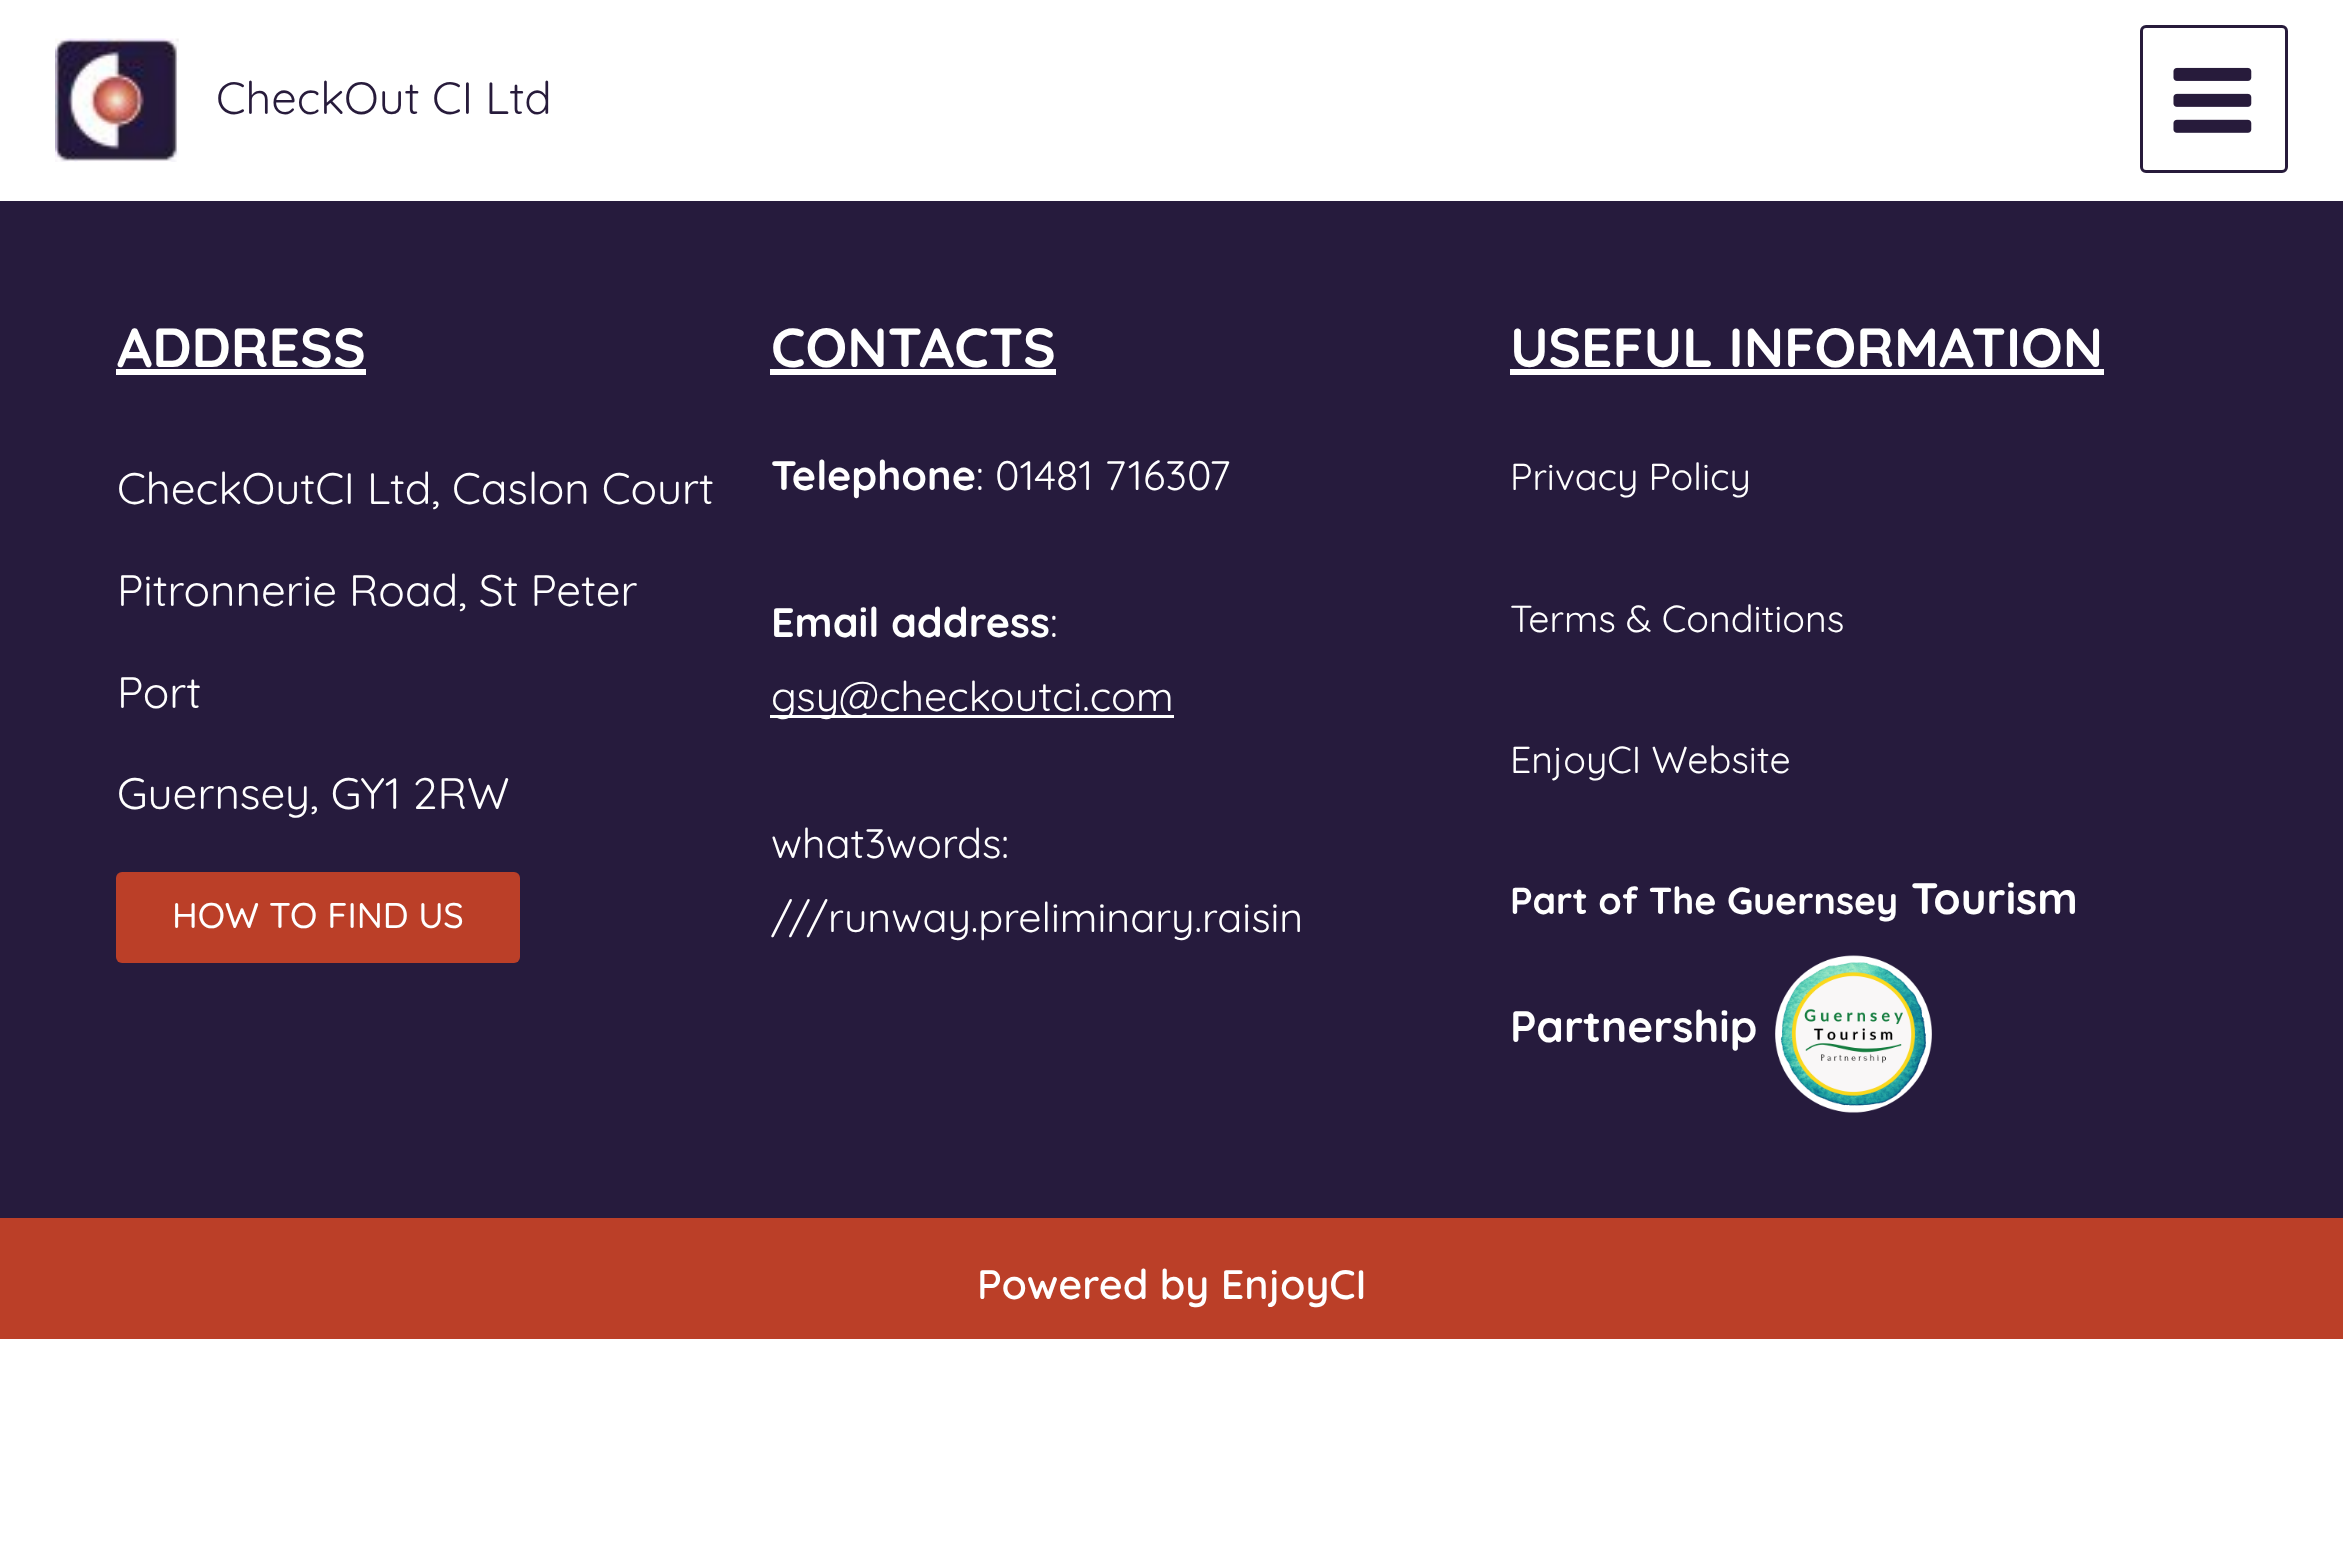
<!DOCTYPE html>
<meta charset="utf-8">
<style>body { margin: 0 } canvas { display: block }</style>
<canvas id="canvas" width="2343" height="1553"></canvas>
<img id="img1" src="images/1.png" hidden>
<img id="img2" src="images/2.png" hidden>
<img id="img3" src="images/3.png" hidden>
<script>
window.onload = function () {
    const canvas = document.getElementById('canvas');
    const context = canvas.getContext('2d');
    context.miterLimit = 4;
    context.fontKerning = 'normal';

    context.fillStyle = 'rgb(255, 255, 255)';
    context.fillRect(0, 0, 2343, 1553);
    context.drawImage(document.getElementById('img1'), 55, 38, 124, 124);
    context.beginPath();
    context.roundRect(2141.5, 26.5, 145, 145, 4.5);
    context.strokeStyle = 'rgb(39, 27, 59)';
    context.lineWidth = 3;
    context.stroke();
    context.drawImage(document.getElementById('img2'), 2173, 67, 79, 66);
    context.fillStyle = 'rgb(38, 27, 61)';
    context.fillRect(0, 201, 2343, 1017);
    context.fillStyle = 'rgb(255, 255, 255)';
    context.fillRect(116, 369, 250, 6);
    context.fillStyle = 'rgb(187, 63, 40)';
    context.beginPath();
    context.roundRect(116, 872, 404, 91, 6);
    context.fill();
    context.fillStyle = 'rgb(255, 255, 255)';
    context.fillRect(770, 369, 286, 6);
    context.fillRect(770, 715, 404, 3);
    context.fillRect(1510, 369, 594, 6);
    context.drawImage(document.getElementById('img3'), 1775, 955, 157, 158);
    context.fillStyle = 'rgb(187, 63, 40)';
    context.fillRect(0, 1218, 2343, 121);
    context.font = '45.25px Quicksand';
    context.fillStyle = 'rgb(39, 27, 59)';
    context.fillText('CheckOut CI Ltd', 216, 114);
    context.font = 'bold 55px Quicksand';
    context.fillStyle = 'rgb(255, 255, 255)';
    context.fillText('ADDRESS', 117, 367);
    context.font = '44px Quicksand';
    context.fillText('CheckOutCI Ltd, Caslon Court', 117, 504);
    context.fillText('Pitronnerie Road, St Peter', 117, 606);
    context.fillText('Port', 117, 708);
    context.fillText('Guernsey, GY1 2RW', 117, 809);
    context.font = '500 35.75px Quicksand';
    context.fillText('HOW TO FIND US', 172, 928);
    context.font = 'bold 55px Quicksand';
    context.fillText('CONTACTS', 771, 367);
    context.font = 'bold 41.25px Quicksand';
    context.fillText('Telephone', 771, 490);
    context.font = '41.25px Quicksand';
    context.fillText(': 01481 716307', 976, 490);
    context.font = 'bold 41.25px Quicksand';
    context.fillText('Email address', 771, 637);
    context.font = '41.25px Quicksand';
    context.fillText(':', 1050, 637);
    context.fillText('gsy@checkoutci.com', 771, 711);
    context.fillText('what3words:', 771, 858);
    context.fillText('///runway.preliminary.raisin', 771, 932);
    context.font = 'bold 55px Quicksand';
    context.fillText('USEFUL INFORMATION', 1510, 367);
    context.font = '37.6px Quicksand';
    context.fillText('Privacy Policy', 1510, 490);
    context.fillText('Terms & Conditions', 1510, 632);
    context.fillText('EnjoyCI Website', 1510, 773);
    context.font = 'bold 37.6px Quicksand';
    context.fillText('Part of The Guernsey', 1510, 914);
    context.font = 'bold 44px Quicksand';
    context.fillText('Tourism', 1911, 914);
    context.fillText('Partnership', 1510, 1042);
    context.font = '600 41.25px Quicksand';
    context.fillText('Powered by EnjoyCI', 977, 1299);
};
</script>
